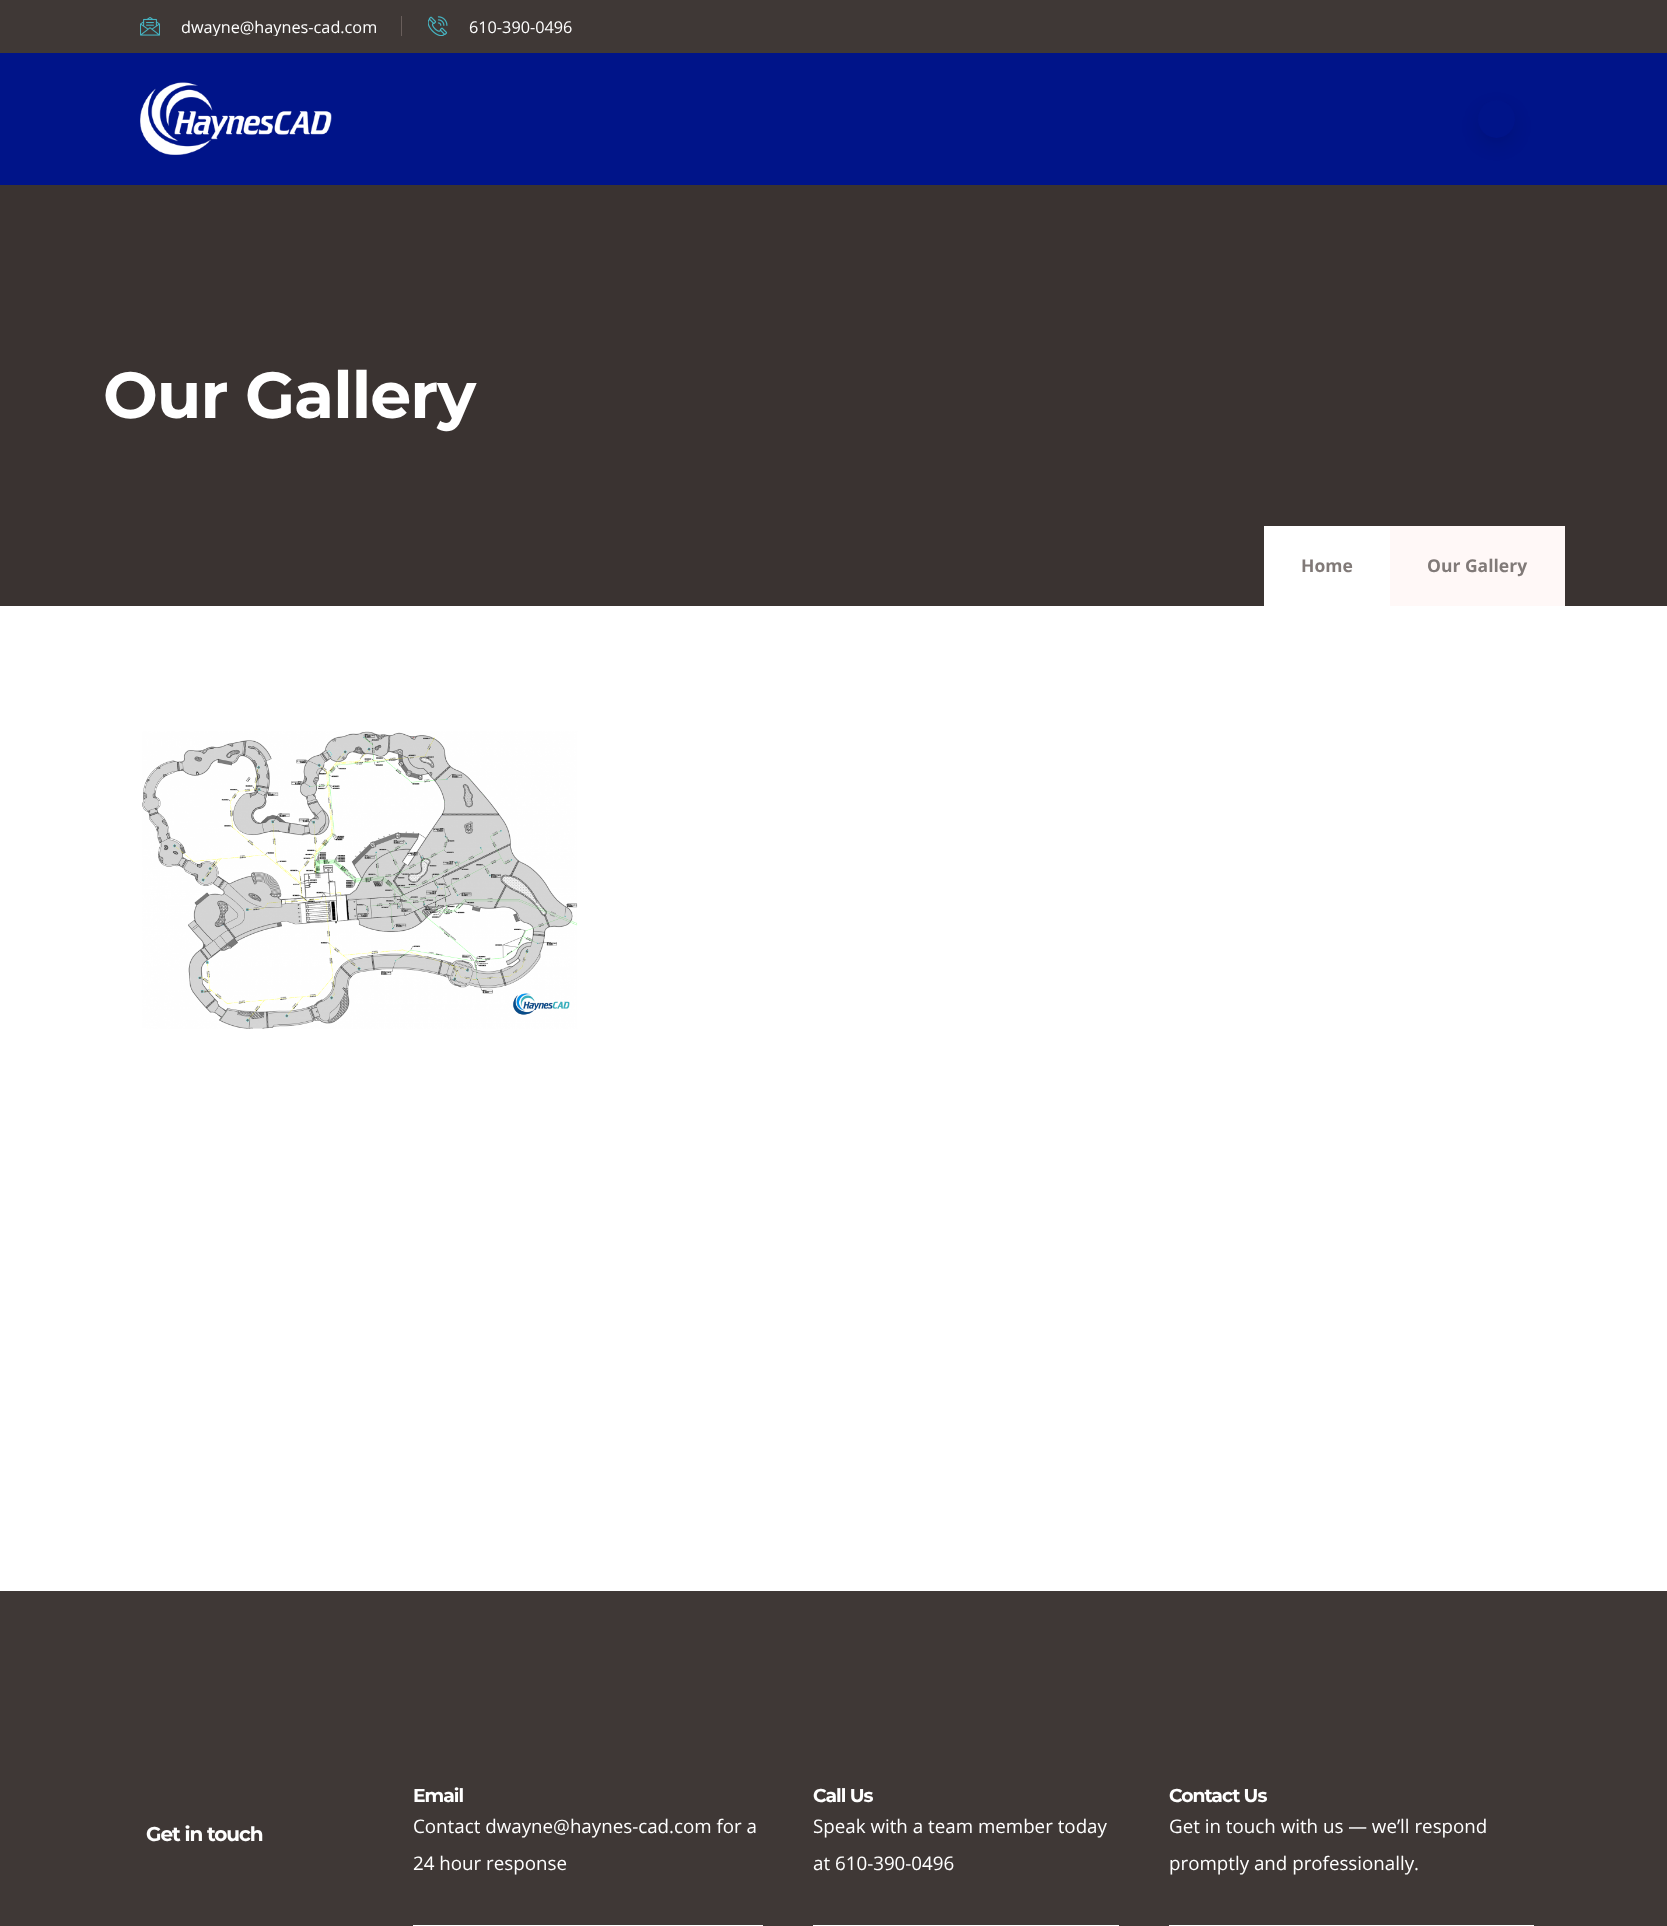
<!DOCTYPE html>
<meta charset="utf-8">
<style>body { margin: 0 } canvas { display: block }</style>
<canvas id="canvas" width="1667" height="1926"></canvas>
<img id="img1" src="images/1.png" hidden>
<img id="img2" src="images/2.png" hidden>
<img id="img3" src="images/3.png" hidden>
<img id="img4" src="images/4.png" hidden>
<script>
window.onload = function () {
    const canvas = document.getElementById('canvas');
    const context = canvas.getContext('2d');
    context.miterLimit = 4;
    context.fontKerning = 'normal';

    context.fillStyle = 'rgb(255, 255, 255)';
    context.fillRect(0, 0, 1667, 1926);
    context.fillStyle = 'rgb(63, 56, 54)';
    context.fillRect(0, 0, 1667, 53);
    context.drawImage(document.getElementById('img1'), 140, 17, 20, 19);
    context.fillStyle = 'rgb(105, 94, 91)';
    context.fillRect(401, 16, 1, 20);
    context.drawImage(document.getElementById('img2'), 428, 16, 20, 20);
    context.fillStyle = 'rgb(0, 20, 137)';
    context.fillRect(0, 53, 1667, 132);
    context.drawImage(document.getElementById('img3'), 140, 82, 192, 73);
    context.fillStyle = 'rgba(0, 0, 0, 0.1)';
    context.filter = 'blur(9px)';
    context.beginPath();
    context.roundRect(1478, 108, 37, 37, 18.5);
    context.fill();
    context.filter = 'none';
    context.fillStyle = 'rgb(0, 20, 137)';
    context.beginPath();
    context.roundRect(1478, 100, 37, 38, 18.5);
    context.fill();
    context.fillStyle = 'rgb(58, 51, 49)';
    context.fillRect(0, 185, 1667, 421);
    context.fillStyle = 'rgb(255, 255, 255)';
    context.fillRect(1264, 526, 126, 80);
    context.fillStyle = 'rgb(255, 248, 247)';
    context.fillRect(1390, 526, 175, 80);
    context.drawImage(document.getElementById('img4'), 142, 731, 436, 298);
    context.fillStyle = 'rgb(63, 56, 54)';
    context.fillRect(0, 1591, 1667, 335);
    context.fillStyle = 'rgb(255, 255, 255)';
    context.fillRect(413, 1925, 350, 1);
    context.fillRect(813, 1925, 306, 1);
    context.fillRect(1169, 1925, 365, 1);
    context.save();
    context.beginPath();
    context.rect(140, 16, 1174, 20);
    context.clip();
    context.font = '16.25px Open Sans';
    context.fillText('dwayne@haynes-cad.com', 181, 33);
    context.restore();
    context.font = '16.25px Open Sans';
    context.fillText('610-390-0496', 469, 33);
    context.letterSpacing = '-1px';
    context.font = 'bold 65px Montserrat';
    context.fillText('Our Gallery', 103, 418);
    context.letterSpacing = '0px';
    context.font = 'bold 17.5px Open Sans';
    context.fillStyle = 'rgb(129, 122, 120)';
    context.fillText('Home', 1301, 572);
    context.fillText('Our Gallery', 1427, 572);
    context.letterSpacing = '-1px';
    context.font = 'bold 20px Montserrat';
    context.fillStyle = 'rgb(255, 255, 255)';
    context.fillText('Get in touch', 146, 1841);
    context.font = 'bold 18.75px Montserrat';
    context.fillText('Email', 413, 1802);
    context.letterSpacing = '0px';
    context.font = '18.75px Open Sans';
    context.fillText('Contact dwayne@haynes-cad.com for a', 413, 1833);
    context.fillText('24 hour response', 413, 1870);
    context.letterSpacing = '-1px';
    context.font = 'bold 18.75px Montserrat';
    context.fillText('Call Us', 813, 1802);
    context.letterSpacing = '0px';
    context.font = '18.75px Open Sans';
    context.fillText('Speak with a team member today', 813, 1833);
    context.fillText('at 610-390-0496', 813, 1870);
    context.letterSpacing = '-1px';
    context.font = 'bold 18.75px Montserrat';
    context.fillText('Contact Us', 1169, 1802);
    context.letterSpacing = '0px';
    context.font = '18.75px Open Sans';
    context.fillText('Get in touch with us — we’ll respond', 1169, 1833);
    context.fillText('promptly and professionally.', 1169, 1870);
};
</script>
